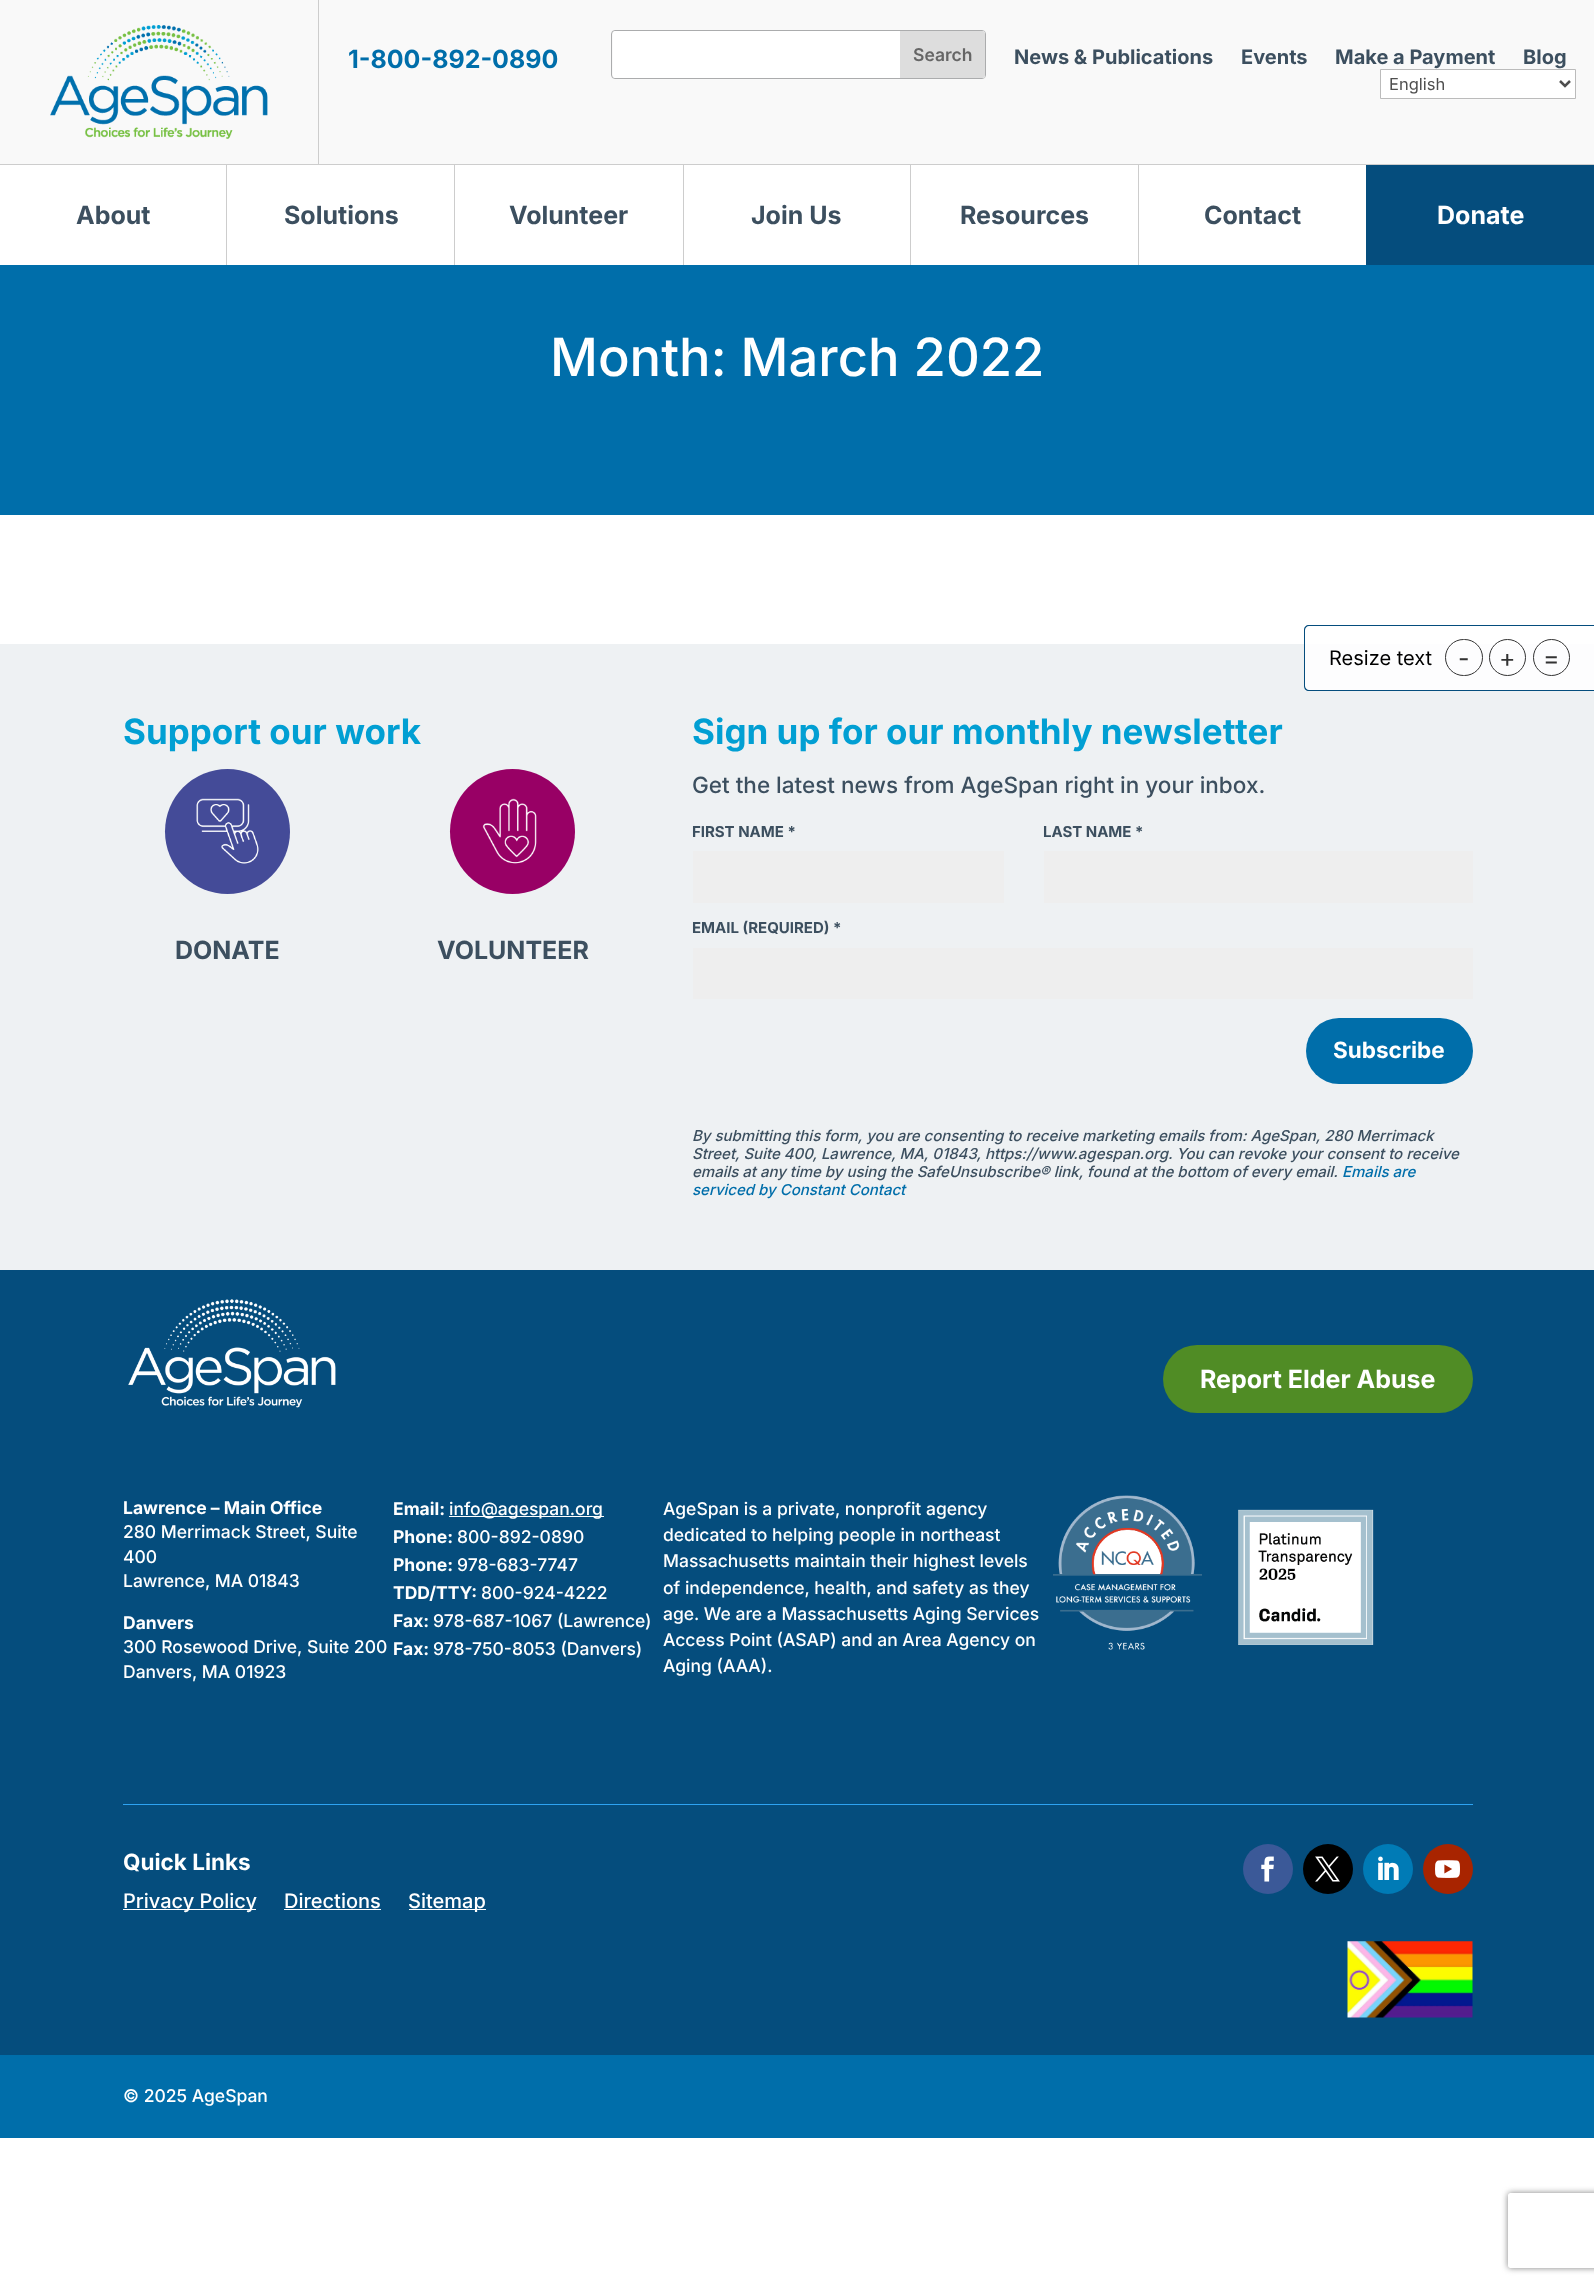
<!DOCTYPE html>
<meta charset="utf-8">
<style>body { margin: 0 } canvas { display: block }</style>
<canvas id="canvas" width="1594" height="2284"></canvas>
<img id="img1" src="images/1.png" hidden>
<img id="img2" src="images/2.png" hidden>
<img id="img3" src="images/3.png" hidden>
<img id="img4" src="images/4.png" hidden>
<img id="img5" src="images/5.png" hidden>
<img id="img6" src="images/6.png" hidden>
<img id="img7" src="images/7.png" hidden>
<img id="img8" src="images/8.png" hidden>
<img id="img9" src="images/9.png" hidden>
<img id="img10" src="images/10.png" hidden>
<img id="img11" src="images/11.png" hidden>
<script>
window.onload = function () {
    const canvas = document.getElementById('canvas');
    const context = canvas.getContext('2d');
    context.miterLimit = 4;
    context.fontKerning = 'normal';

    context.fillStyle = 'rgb(255, 255, 255)';
    context.fillRect(0, 0, 1594, 2284);
    context.fillStyle = 'rgb(249, 249, 249)';
    context.fillRect(0, 0, 1594, 164);
    context.fillStyle = 'rgb(205, 205, 205)';
    context.fillRect(318, 0, 1, 164);
    context.drawImage(document.getElementById('img1'), 50, 25, 218, 114);
    context.beginPath();
    context.roundRect(611.5, 30.5, 374, 48, 3.5);
    context.strokeStyle = 'rgb(171, 172, 173)';
    context.stroke();
    context.fillStyle = 'rgb(255, 255, 255)';
    context.beginPath();
    context.roundRect(613, 31, 372, 47, 2.5);
    context.fill();
    context.fillStyle = 'rgb(221, 221, 221)';
    context.beginPath();
    context.roundRect(900, 31, 85, 47, [0, 2.5, 2.5, 0]);
    context.fill();
    context.fillStyle = 'rgb(205, 205, 205)';
    context.fillRect(0, 164, 1594, 1);
    context.fillRect(226, 165, 1, 100);
    context.fillRect(454, 165, 1, 100);
    context.fillRect(683, 165, 1, 100);
    context.fillRect(910, 165, 1, 100);
    context.fillRect(1138, 165, 1, 100);
    context.fillStyle = 'rgb(5, 77, 125)';
    context.fillRect(1366, 165, 228, 100);
    context.fillStyle = 'rgb(0, 110, 170)';
    context.fillRect(0, 265, 1594, 250);
    context.fillStyle = 'rgb(238, 241, 243)';
    context.fillRect(0, 644, 1594, 626);
    context.fillStyle = 'rgb(68, 75, 152)';
    context.beginPath();
    context.arc(227.5, 831.5, 62.5, 0, 2 * Math.PI);
    context.fill();
    context.drawImage(document.getElementById('img2'), 196, 798, 63, 66);
    context.fillStyle = 'rgb(152, 0, 101)';
    context.beginPath();
    context.arc(512.5, 831.5, 62.5, 0, 2 * Math.PI);
    context.fill();
    context.drawImage(document.getElementById('img3'), 482, 798, 55, 66);
    context.fillStyle = 'rgb(238, 238, 238)';
    context.fillRect(693, 851, 311, 52);
    context.fillRect(1044, 851, 429, 52);
    context.fillRect(693, 948, 780, 51);
    context.fillStyle = 'rgb(0, 110, 170)';
    context.beginPath();
    context.roundRect(1306, 1018, 167, 66, 33);
    context.fill();
    context.fillStyle = 'rgb(5, 77, 125)';
    context.fillRect(0, 1270, 1594, 785);
    context.drawImage(document.getElementById('img4'), 128, 1299, 208, 109);
    context.fillStyle = 'rgb(80, 140, 37)';
    context.beginPath();
    context.roundRect(1163, 1345, 310, 68, 34);
    context.fill();
    context.fillStyle = 'rgb(255, 255, 255)';
    context.fillRect(449, 1516, 155, 1);
    context.drawImage(document.getElementById('img5'), 1053, 1495, 149, 155);
    context.drawImage(document.getElementById('img6'), 1238, 1509, 136, 136);
    context.fillStyle = 'rgb(46, 163, 242)';
    context.fillRect(123, 1804, 1350, 1);
    context.fillStyle = 'rgb(255, 255, 255)';
    context.fillRect(123, 1909, 133, 1);
    context.fillRect(284, 1909, 97, 1);
    context.fillRect(409, 1909, 77, 1);
    context.fillStyle = 'rgb(59, 89, 152)';
    context.beginPath();
    context.arc(1268, 1869, 25, 0, 2 * Math.PI);
    context.fill();
    context.drawImage(document.getElementById('img7'), 1261, 1856, 13, 26);
    context.fillStyle = 'rgb(0, 0, 0)';
    context.beginPath();
    context.arc(1328, 1869, 25, 0, 2 * Math.PI);
    context.fill();
    context.drawImage(document.getElementById('img8'), 1315, 1856, 25, 26);
    context.fillStyle = 'rgb(0, 123, 182)';
    context.beginPath();
    context.arc(1388, 1869, 25, 0, 2 * Math.PI);
    context.fill();
    context.drawImage(document.getElementById('img9'), 1378, 1856, 21, 24);
    context.fillStyle = 'rgb(168, 36, 0)';
    context.beginPath();
    context.arc(1448, 1869, 25, 0, 2 * Math.PI);
    context.fill();
    context.drawImage(document.getElementById('img10'), 1435, 1860, 25, 18);
    context.drawImage(document.getElementById('img11'), 1347, 1941, 126, 77);
    context.fillStyle = 'rgb(0, 110, 170)';
    context.fillRect(0, 2055, 1594, 83);
    context.fillStyle = 'rgb(255, 255, 255)';
    context.beginPath();
    context.rect(1380.5, 69.5, 195, 29);
    context.fill();
    context.strokeStyle = 'rgb(187, 187, 187)';
    context.stroke();
    context.beginPath();
    context.moveTo(1560, 81);
    context.lineTo(1565, 86);
    context.lineTo(1570, 81);
    context.strokeStyle = 'rgb(78, 78, 78)';
    context.lineWidth = 2.5;
    context.stroke();
    context.fillStyle = 'rgba(255, 255, 255, 0.85)';
    context.beginPath();
    context.moveTo(1309, 625);
    context.lineTo(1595, 625);
    context.lineTo(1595, 691);
    context.lineTo(1309, 691);
    context.bezierCurveTo(1306, 691, 1304, 689, 1304, 686);
    context.lineTo(1304, 630);
    context.bezierCurveTo(1304, 627, 1306, 625, 1309, 625);
    context.closePath();
    context.fill();
    context.fillStyle = 'rgb(5, 77, 125)';
    context.beginPath();
    context.moveTo(1309, 625);
    context.lineTo(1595, 625);
    context.lineTo(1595, 691);
    context.lineTo(1309, 691);
    context.bezierCurveTo(1306, 691, 1304, 689, 1304, 686);
    context.lineTo(1304, 630);
    context.bezierCurveTo(1304, 627, 1306, 625, 1309, 625);
    context.closePath();
    context.moveTo(1309, 626);
    context.lineTo(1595, 626);
    context.lineTo(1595, 690);
    context.lineTo(1309, 690);
    context.bezierCurveTo(1307, 690, 1305, 688, 1305, 686);
    context.lineTo(1305, 630);
    context.bezierCurveTo(1305, 628, 1307, 626, 1309, 626);
    context.closePath();
    context.fill('evenodd');
    context.beginPath();
    context.roundRect(1445.5, 639.5, 37, 36, 18);
    context.strokeStyle = 'rgb(51, 51, 51)';
    context.lineWidth = 1;
    context.stroke();
    context.beginPath();
    context.arc(1507.5, 657.5, 18, 0, 2 * Math.PI);
    context.stroke();
    context.beginPath();
    context.arc(1551.5, 657.5, 18, 0, 2 * Math.PI);
    context.stroke();
    context.save();
    context.beginPath();
    context.moveTo(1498, 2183);
    context.lineTo(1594, 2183);
    context.lineTo(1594, 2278);
    context.lineTo(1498, 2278);
    context.closePath();
    context.moveTo(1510.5, 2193);
    context.lineTo(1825.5, 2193);
    context.bezierCurveTo(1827, 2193, 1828, 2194, 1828, 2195.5);
    context.lineTo(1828, 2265.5);
    context.bezierCurveTo(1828, 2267, 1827, 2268, 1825.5, 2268);
    context.lineTo(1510.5, 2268);
    context.bezierCurveTo(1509, 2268, 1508, 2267, 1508, 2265.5);
    context.lineTo(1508, 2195.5);
    context.bezierCurveTo(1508, 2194, 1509, 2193, 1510.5, 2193);
    context.closePath();
    context.clip('evenodd');
    context.fillStyle = 'rgb(128, 128, 128)';
    context.filter = 'blur(3px)';
    context.beginPath();
    context.roundRect(1508, 2193, 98, 75, 2.5);
    context.fill();
    context.filter = 'none';
    context.restore();
    context.font = 'bold 25px Inter';
    context.fillStyle = 'rgb(0, 110, 170)';
    context.fillText('1-800-892-0890', 348, 68);
    context.font = '600 17.5px Inter';
    context.fillStyle = 'rgb(102, 102, 102)';
    context.fillText('Search', 913, 61);
    context.font = 'bold 20px Inter';
    context.fillStyle = 'rgb(60, 79, 95)';
    context.fillText('News & Publications', 1014, 64);
    context.fillText('Events', 1241, 64);
    context.fillText('Make a Payment', 1335, 64);
    context.fillText('Blog', 1523, 64);
    context.font = 'bold 25px Inter';
    context.fillText('About', 76, 224);
    context.fillText('Solutions', 284, 224);
    context.fillText('Volunteer', 509, 224);
    context.fillText('Join Us', 751, 224);
    context.fillText('Resources', 960, 224);
    context.fillText('Contact', 1204, 224);
    context.fillStyle = 'rgb(255, 255, 255)';
    context.fillText('Donate', 1437, 224);
    context.font = '500 52.5px Inter';
    context.fillText('Month: March 2022', 550, 376);
    context.font = 'bold 35px Inter';
    context.fillStyle = 'rgb(1, 159, 211)';
    context.fillText('Support our work', 123, 744);
    context.fillText('Sign up for our monthly newsletter', 692, 744);
    context.font = 'bold 25px Inter';
    context.fillStyle = 'rgb(60, 79, 95)';
    context.fillText('DONATE', 175, 959);
    context.fillText('VOLUNTEER', 437, 959);
    context.font = '500 22.5px Inter';
    context.fillText('Get the latest news from AgeSpan right in your inbox.', 692, 793);
    context.font = 'bold 15px Inter';
    context.fillText('FIRST NAME *', 692, 837);
    context.fillText('LAST NAME *', 1043, 837);
    context.fillText('EMAIL (REQUIRED) *', 692, 933);
    context.font = 'bold 22.5px Inter';
    context.fillStyle = 'rgb(255, 255, 255)';
    context.fillText('Subscribe', 1333, 1058);
    context.font = 'italic 500 15px Inter';
    context.fillStyle = 'rgb(60, 79, 95)';
    context.fillText('By submitting this form, you are consenting to receive marketing emails from: AgeSpan, 280 Merrimack', 692, 1141);
    context.fillText('Street, Suite 400, Lawrence, MA, 01843, https://www.agespan.org. You can revoke your consent to receive', 692, 1159);
    context.fillText('emails at any time by using the SafeUnsubscribe® link, found at the bottom of every email.', 692, 1177);
    context.fillStyle = 'rgb(0, 110, 170)';
    context.fillText('Emails are', 1342, 1177);
    context.fillText('serviced by Constant Contact', 692, 1195);
    context.font = 'bold 25px Inter';
    context.fillStyle = 'rgb(255, 255, 255)';
    context.fillText('Report Elder Abuse', 1200, 1388);
    context.font = 'bold 17.5px Inter';
    context.fillText('Lawrence – Main Office', 123, 1514);
    context.font = '500 17.5px Inter';
    context.fillText('280 Merrimack Street, Suite', 123, 1538);
    context.fillText('400', 123, 1563);
    context.fillText('Lawrence, MA 01843', 123, 1587);
    context.font = 'bold 17.5px Inter';
    context.fillText('Danvers', 123, 1629);
    context.font = '500 17.5px Inter';
    context.fillText('300 Rosewood Drive, Suite 200', 123, 1653);
    context.fillText('Danvers, MA 01923', 123, 1678);
    context.font = 'bold 17.5px Inter';
    context.fillText('Email:', 393, 1515);
    context.font = '500 17.5px Inter';
    context.fillText('info@agespan.org', 449, 1515);
    context.font = 'bold 17.5px Inter';
    context.fillText('Phone:', 393, 1543);
    context.font = '500 17.5px Inter';
    context.fillText('800-892-0890', 457, 1543);
    context.font = 'bold 17.5px Inter';
    context.fillText('Phone:', 393, 1571);
    context.font = '500 17.5px Inter';
    context.fillText('978-683-7747', 457, 1571);
    context.font = 'bold 17.5px Inter';
    context.fillText('TDD/TTY:', 393, 1599);
    context.font = '500 17.5px Inter';
    context.fillText('800-924-4222', 481, 1599);
    context.font = 'bold 17.5px Inter';
    context.fillText('Fax:', 393, 1627);
    context.font = '500 17.5px Inter';
    context.fillText('978-687-1067 (Lawrence)', 433, 1627);
    context.font = 'bold 17.5px Inter';
    context.fillText('Fax:', 393, 1655);
    context.font = '500 17.5px Inter';
    context.fillText('978-750-8053 (Danvers)', 433, 1655);
    context.fillText('AgeSpan is a private, nonprofit agency', 663, 1515);
    context.fillText('dedicated to helping people in northeast', 663, 1541);
    context.fillText('Massachusetts maintain their highest levels', 663, 1567);
    context.fillText('of independence, health, and safety as they', 663, 1594);
    context.fillText('age. We are a Massachusetts Aging Services', 663, 1620);
    context.fillText('Access Point (ASAP) and an Area Agency on', 663, 1646);
    context.fillText('Aging (AAA).', 663, 1672);
    context.font = 'bold 22.5px Inter';
    context.fillText('Quick Links', 123, 1870);
    context.font = '500 20px Inter';
    context.fillText('Privacy Policy', 123, 1908);
    context.fillText('Directions', 284, 1908);
    context.fillText('Sitemap', 408, 1908);
    context.font = '500 17.5px Inter';
    context.fillText('© 2025 AgeSpan', 123, 2102);
    context.font = '16.5px Inter';
    context.fillStyle = 'rgb(78, 78, 78)';
    context.fillText('English', 1389, 90);
    context.font = '20px Inter';
    context.fillStyle = 'rgb(0, 0, 0)';
    context.fillText('Resize text', 1329, 665);
    context.font = '25px Inter';
    context.fillStyle = 'rgb(51, 51, 51)';
    context.fillText('-', 1458, 667);
    context.fillText('+', 1499, 667);
    context.fillText('=', 1543, 667);
};
</script>
